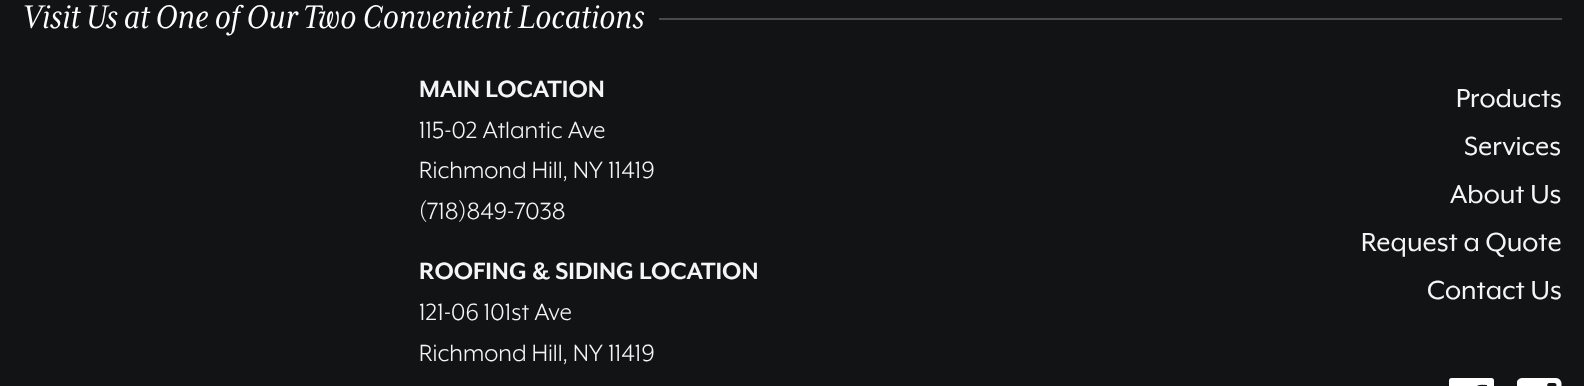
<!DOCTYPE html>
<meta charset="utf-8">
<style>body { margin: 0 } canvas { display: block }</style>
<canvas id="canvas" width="1584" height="386"></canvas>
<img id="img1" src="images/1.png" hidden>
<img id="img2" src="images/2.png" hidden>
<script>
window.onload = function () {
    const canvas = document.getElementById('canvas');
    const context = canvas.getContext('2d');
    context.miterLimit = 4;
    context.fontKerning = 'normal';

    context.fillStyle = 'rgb(18, 19, 21)';
    context.fillRect(0, 0, 1584, 386);
    context.fillStyle = 'rgb(73, 74, 75)';
    context.fillRect(659, 18, 903, 2);
    context.drawImage(document.getElementById('img1'), 1449, 378, 45, 8);
    context.drawImage(document.getElementById('img2'), 1517, 378, 45, 8);
    context.font = 'italic 37.5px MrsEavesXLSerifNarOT';
    context.fillStyle = 'rgb(255, 255, 255)';
    context.fillText('Visit Us at One of Our Two Convenient Locations', 23, 28);
    context.font = 'bold 27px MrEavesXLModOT';
    context.fillStyle = 'rgb(245, 245, 245)';
    context.fillText('MAIN LOCATION', 419, 97);
    context.font = '27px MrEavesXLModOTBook';
    context.fillText('115-02 Atlantic Ave', 419, 138);
    context.fillText('Richmond Hill, NY 11419', 419, 178);
    context.fillText('(718)849-7038', 419, 219);
    context.font = 'bold 27px MrEavesXLModOT';
    context.fillText('ROOFING & SIDING LOCATION', 419, 279);
    context.font = '27px MrEavesXLModOTBook';
    context.fillText('121-06 101st Ave', 419, 320);
    context.fillText('Richmond Hill, NY 11419', 419, 361);
    context.font = '30px MrEavesXLModOT';
    context.fillText('Products', 1456, 107);
    context.fillText('Services', 1464, 155);
    context.fillText('About Us', 1450, 203);
    context.fillText('Request a Quote', 1361, 251);
    context.fillText('Contact Us', 1427, 299);
};
</script>
